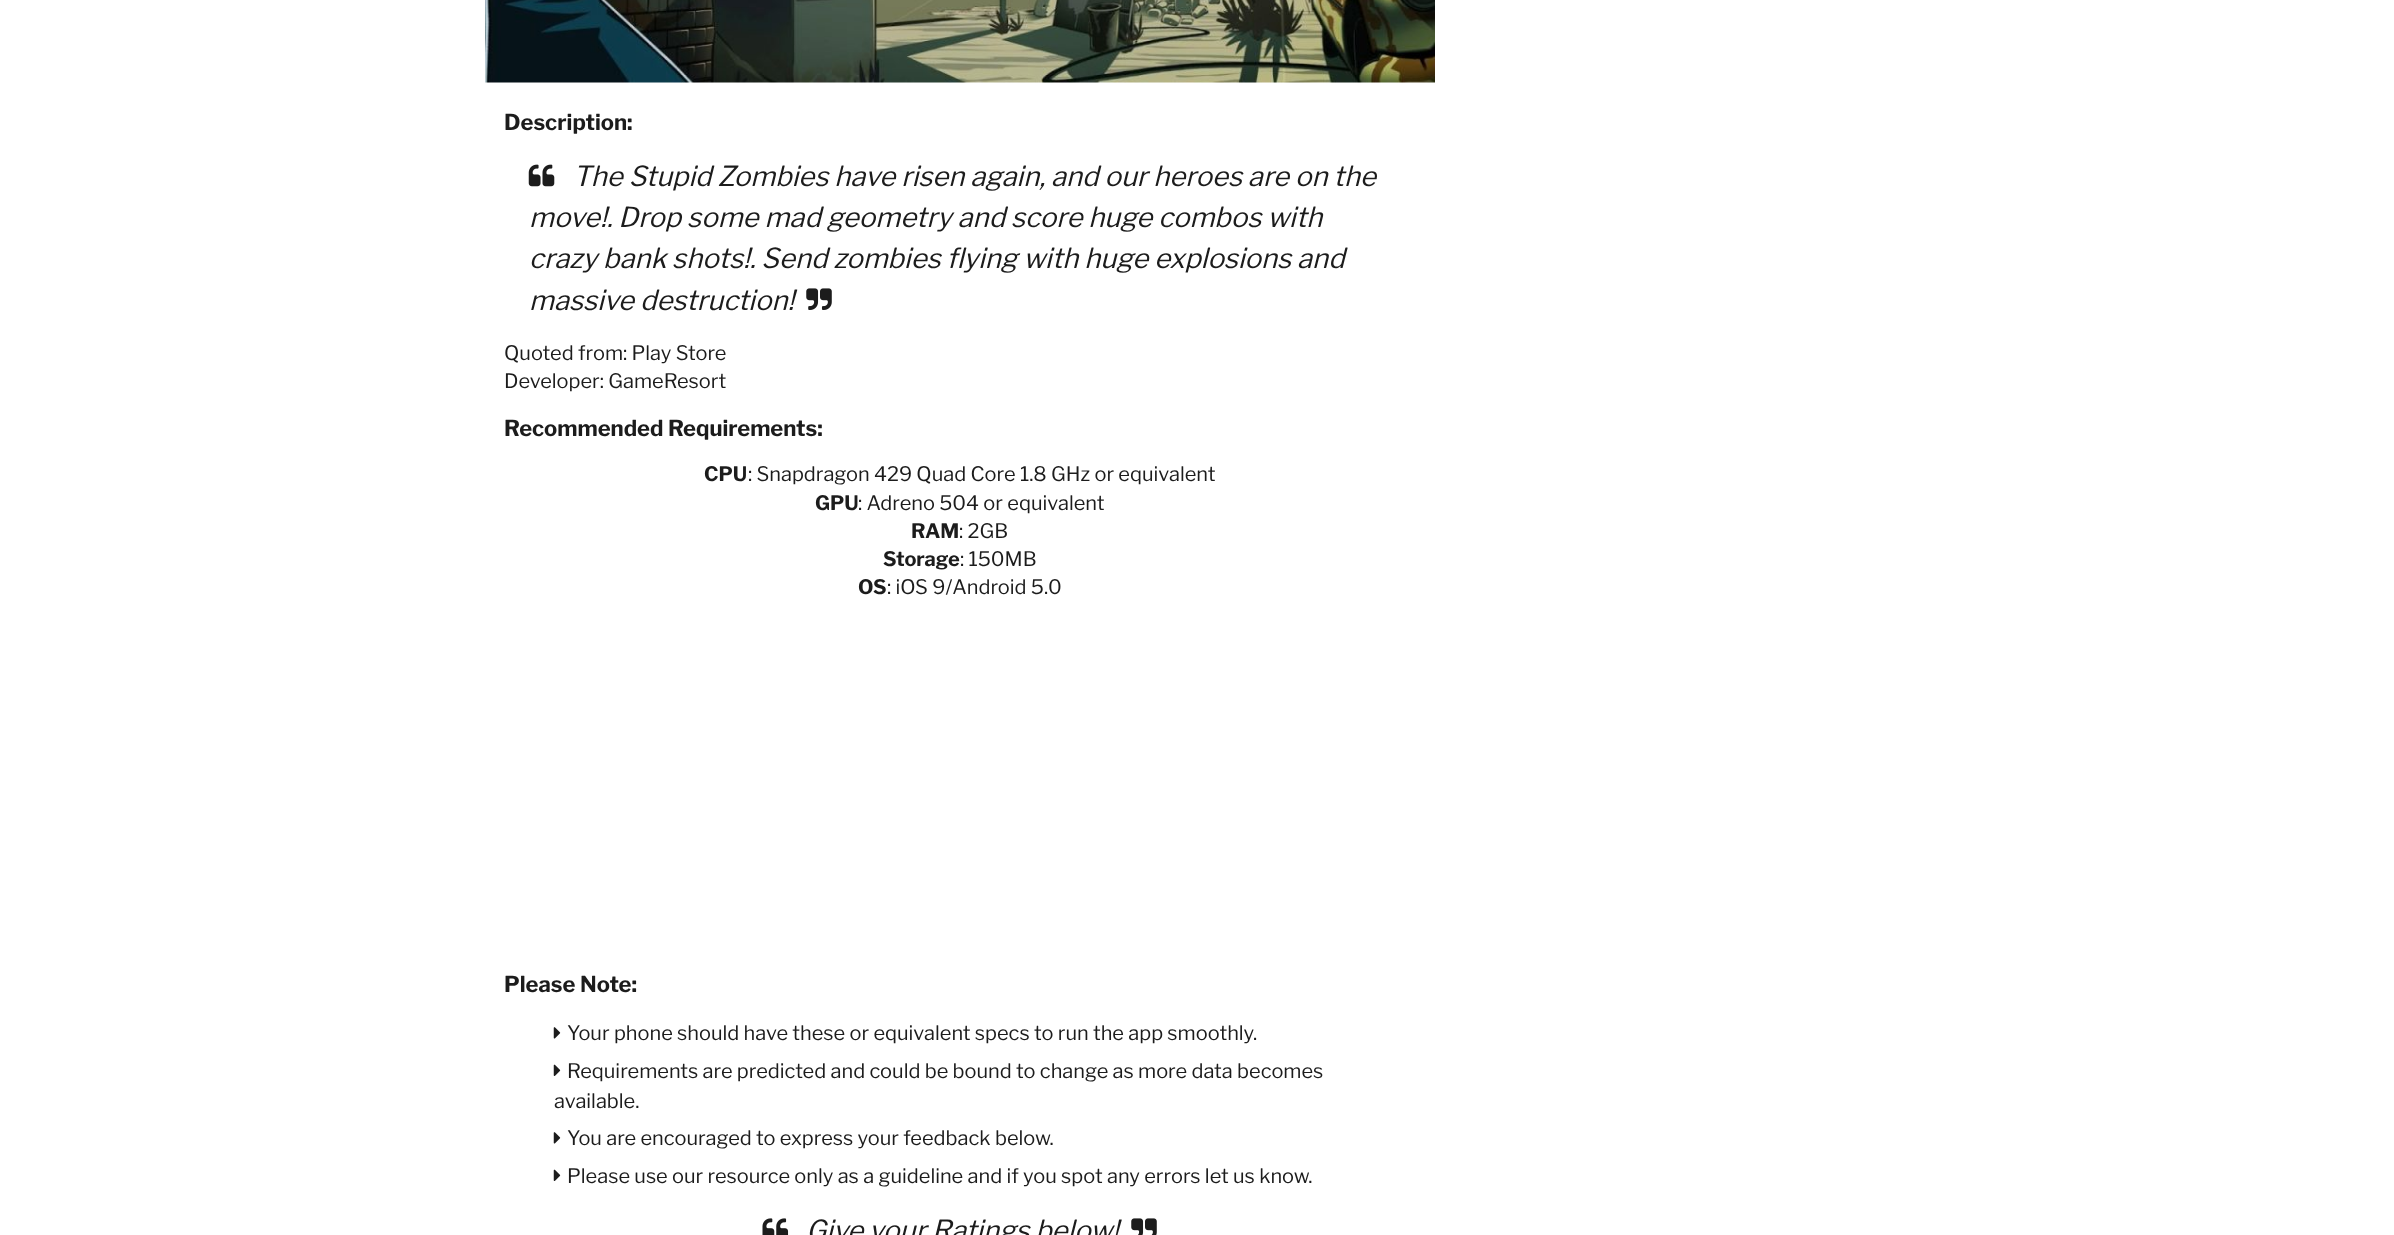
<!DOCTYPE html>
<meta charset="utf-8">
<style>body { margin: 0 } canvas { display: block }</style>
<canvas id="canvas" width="2394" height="1235"></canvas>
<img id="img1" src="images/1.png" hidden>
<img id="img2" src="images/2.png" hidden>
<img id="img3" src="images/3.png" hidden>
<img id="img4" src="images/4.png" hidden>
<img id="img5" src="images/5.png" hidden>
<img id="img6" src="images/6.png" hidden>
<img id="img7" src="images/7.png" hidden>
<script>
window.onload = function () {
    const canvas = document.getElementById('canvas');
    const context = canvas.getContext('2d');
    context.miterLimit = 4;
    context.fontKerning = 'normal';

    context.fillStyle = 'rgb(255, 255, 255)';
    context.fillRect(0, 0, 2394, 1235);
    context.drawImage(document.getElementById('img1'), 485, 0, 950, 83);
    context.drawImage(document.getElementById('img2'), 528, 164, 27, 23);
    context.drawImage(document.getElementById('img3'), 806, 288, 26, 22);
    context.drawImage(document.getElementById('img4'), 553, 1027, 8, 12);
    context.drawImage(document.getElementById('img5'), 553, 1064, 8, 12);
    context.drawImage(document.getElementById('img4'), 553, 1132, 8, 12);
    context.drawImage(document.getElementById('img5'), 553, 1169, 8, 12);
    context.drawImage(document.getElementById('img6'), 762, 1218, 27, 17);
    context.drawImage(document.getElementById('img7'), 1131, 1218, 26, 17);
    context.font = 'bold 22px Libre Franklin';
    context.fillStyle = 'rgb(28, 28, 28)';
    context.fillText('Description:', 504, 130);
    context.font = 'italic 27.5px Libre Franklin';
    context.fillText('The Stupid Zombies have risen again, and our heroes are on the', 573, 186);
    context.fillText('move!. Drop some mad geometry and score huge combos with', 529, 227);
    context.fillText('crazy bank shots!. Send zombies flying with huge explosions and', 529, 268);
    context.fillText('massive destruction!', 529, 310);
    context.font = '20px Libre Franklin';
    context.fillText('Quoted from: Play Store', 504, 360);
    context.fillText('Developer: GameResort', 504, 388);
    context.font = 'bold 22px Libre Franklin';
    context.fillText('Recommended Requirements:', 504, 436);
    context.font = 'bold 20px Libre Franklin';
    context.fillText('CPU', 704, 481);
    context.font = '20px Libre Franklin';
    context.fillText(': Snapdragon 429 Quad Core 1.8 GHz or equivalent', 748, 481);
    context.font = 'bold 20px Libre Franklin';
    context.fillText('GPU', 815, 510);
    context.font = '20px Libre Franklin';
    context.fillText(': Adreno 504 or equivalent', 858, 510);
    context.font = 'bold 20px Libre Franklin';
    context.fillText('RAM', 911, 538);
    context.font = '20px Libre Franklin';
    context.fillText(': 2GB', 959, 538);
    context.font = 'bold 20px Libre Franklin';
    context.fillText('Storage', 883, 566);
    context.font = '20px Libre Franklin';
    context.fillText(': 150MB', 960, 566);
    context.font = 'bold 20px Libre Franklin';
    context.fillText('OS', 858, 594);
    context.font = '20px Libre Franklin';
    context.fillText(': iOS 9/Android 5.0', 887, 594);
    context.font = 'bold 22px Libre Franklin';
    context.fillText('Please Note:', 504, 992);
    context.font = '20px Libre Franklin';
    context.fillText('Your phone should have these or equivalent specs to run the app smoothly.', 567, 1040);
    context.fillText('Requirements are predicted and could be bound to change as more data becomes', 567, 1078);
    context.fillText('available.', 554, 1108);
    context.fillText('You are encouraged to express your feedback below.', 567, 1145);
    context.fillText('Please use our resource only as a guideline and if you spot any errors let us know.', 567, 1183);
    context.font = 'italic 27.5px Libre Franklin';
    context.fillText('Give your Ratings below!', 806, 1240);
};
</script>
